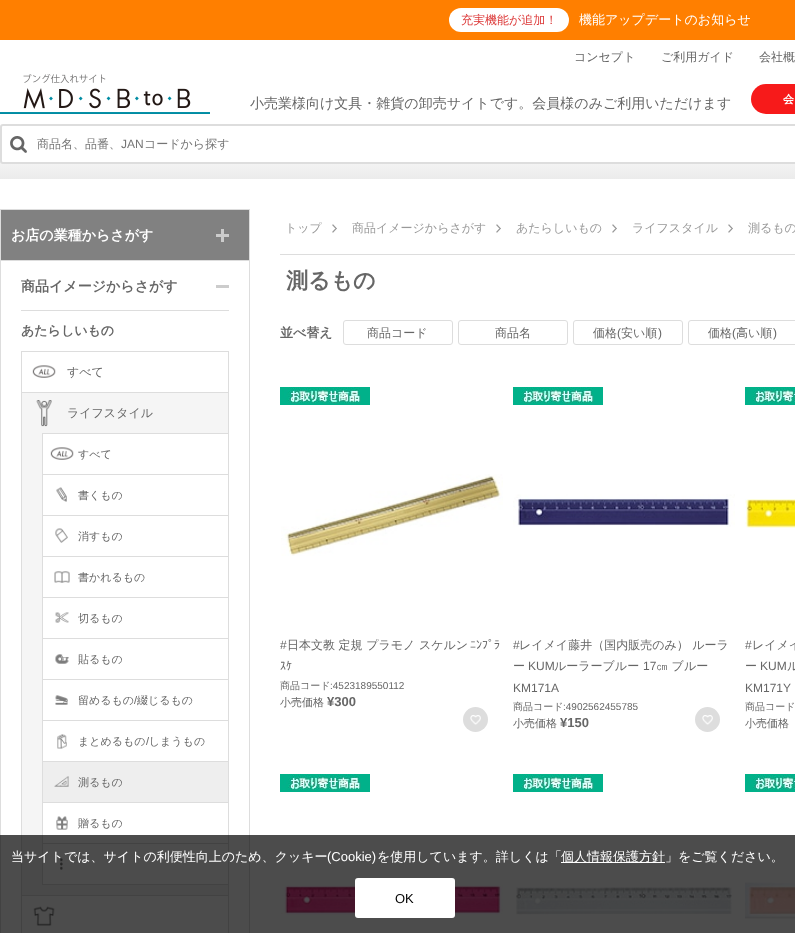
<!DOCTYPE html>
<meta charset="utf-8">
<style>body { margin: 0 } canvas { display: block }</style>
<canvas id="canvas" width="795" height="933"></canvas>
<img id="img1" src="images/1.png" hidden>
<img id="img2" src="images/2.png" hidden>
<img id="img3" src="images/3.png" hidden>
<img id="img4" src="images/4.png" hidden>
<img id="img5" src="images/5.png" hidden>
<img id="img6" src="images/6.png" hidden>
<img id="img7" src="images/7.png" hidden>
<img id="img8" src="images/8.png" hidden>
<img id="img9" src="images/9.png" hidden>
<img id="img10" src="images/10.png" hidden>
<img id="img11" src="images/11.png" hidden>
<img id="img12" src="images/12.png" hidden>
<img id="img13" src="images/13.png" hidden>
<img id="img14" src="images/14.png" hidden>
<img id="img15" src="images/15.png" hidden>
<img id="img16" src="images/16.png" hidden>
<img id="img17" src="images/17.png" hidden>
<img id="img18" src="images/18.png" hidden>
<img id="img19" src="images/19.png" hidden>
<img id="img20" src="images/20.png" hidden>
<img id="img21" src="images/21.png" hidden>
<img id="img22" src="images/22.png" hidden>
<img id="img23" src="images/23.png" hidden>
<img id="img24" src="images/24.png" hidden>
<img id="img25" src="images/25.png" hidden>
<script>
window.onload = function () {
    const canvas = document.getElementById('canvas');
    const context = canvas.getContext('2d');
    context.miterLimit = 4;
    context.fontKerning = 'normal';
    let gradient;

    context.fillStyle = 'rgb(255, 255, 255)';
    context.fillRect(0, 0, 795, 933);
    context.fillStyle = 'rgb(255, 127, 0)';
    context.fillRect(0, 0, 795, 40);
    context.fillStyle = 'rgb(255, 255, 255)';
    context.beginPath();
    context.roundRect(449, 8, 120, 24, 12);
    context.fill();
    context.drawImage(document.getElementById('img1'), 0, 74, 210, 40);
    context.fillStyle = 'rgb(247, 26, 26)';
    context.beginPath();
    context.roundRect(751, 84, 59, 30, 15);
    context.fill();
    gradient = context.createLinearGradient(600, 139, 600, 179);
    gradient.addColorStop(0, 'rgb(255, 255, 255)');
    gradient.addColorStop(1, 'rgb(235, 235, 235)');
    context.fillStyle = gradient;
    context.fillRect(0, 161, 795, 18);
    context.fillStyle = 'rgb(255, 255, 255)';
    context.beginPath();
    context.roundRect(1, 125, 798, 38, 2);
    context.fill();
    context.strokeStyle = 'rgb(221, 221, 221)';
    context.lineWidth = 2;
    context.stroke();
    context.drawImage(document.getElementById('img2'), 10, 136, 17, 17);
    context.lineWidth = 1;
    context.strokeRect(0.5, 209.5, 249, 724);
    context.fillStyle = 'rgb(129, 129, 129)';
    context.fillRect(1, 210, 248, 50);
    context.fillStyle = 'rgb(204, 204, 204)';
    context.fillRect(216, 234, 13, 3);
    context.fillRect(221, 229, 3, 13);
    context.fillStyle = 'rgb(221, 221, 221)';
    context.fillRect(1, 260, 248, 1);
    context.fillStyle = 'rgb(204, 204, 204)';
    context.fillRect(216, 285, 13, 3);
    context.fillStyle = 'rgb(221, 221, 221)';
    context.fillRect(21, 310, 208, 1);
    context.strokeRect(21.5, 351.5, 207, 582);
    context.drawImage(document.getElementById('img3'), 32, 365, 24, 13);
    context.fillStyle = 'rgb(245, 245, 245)';
    context.fillRect(22, 393, 206, 502);
    context.fillStyle = 'rgb(221, 221, 221)';
    context.fillRect(22, 392, 206, 1);
    context.drawImage(document.getElementById('img4'), 36, 400, 16, 27);
    context.fillRect(42, 884, 186, 1);
    context.fillRect(42, 433, 1, 452);
    context.fillStyle = 'rgb(255, 255, 255)';
    context.fillRect(43, 434, 185, 40);
    context.fillStyle = 'rgb(221, 221, 221)';
    context.fillRect(43, 433, 185, 1);
    context.drawImage(document.getElementById('img3'), 50, 447, 24, 13);
    context.fillStyle = 'rgb(255, 255, 255)';
    context.fillRect(43, 475, 185, 40);
    context.fillStyle = 'rgb(221, 221, 221)';
    context.fillRect(43, 474, 185, 1);
    context.drawImage(document.getElementById('img5'), 56, 487, 11, 15);
    context.fillStyle = 'rgb(255, 255, 255)';
    context.fillRect(43, 516, 185, 40);
    context.fillStyle = 'rgb(221, 221, 221)';
    context.fillRect(43, 515, 185, 1);
    context.drawImage(document.getElementById('img6'), 55, 528, 13, 15);
    context.fillStyle = 'rgb(255, 255, 255)';
    context.fillRect(43, 557, 185, 40);
    context.fillStyle = 'rgb(221, 221, 221)';
    context.fillRect(43, 556, 185, 1);
    context.drawImage(document.getElementById('img7'), 54, 571, 16, 12);
    context.fillStyle = 'rgb(255, 255, 255)';
    context.fillRect(43, 598, 185, 40);
    context.fillStyle = 'rgb(221, 221, 221)';
    context.fillRect(43, 597, 185, 1);
    context.drawImage(document.getElementById('img8'), 55, 612, 14, 11);
    context.fillStyle = 'rgb(255, 255, 255)';
    context.fillRect(43, 639, 185, 40);
    context.fillStyle = 'rgb(221, 221, 221)';
    context.fillRect(43, 638, 185, 1);
    context.drawImage(document.getElementById('img9'), 55, 654, 14, 10);
    context.fillStyle = 'rgb(255, 255, 255)';
    context.fillRect(43, 680, 185, 40);
    context.fillStyle = 'rgb(221, 221, 221)';
    context.fillRect(43, 679, 185, 1);
    context.drawImage(document.getElementById('img10'), 55, 695, 13, 10);
    context.fillStyle = 'rgb(255, 255, 255)';
    context.fillRect(43, 721, 185, 40);
    context.fillStyle = 'rgb(221, 221, 221)';
    context.fillRect(43, 720, 185, 1);
    context.drawImage(document.getElementById('img11'), 57, 734, 10, 15);
    context.fillStyle = 'rgb(238, 238, 238)';
    context.fillRect(43, 762, 185, 40);
    context.fillStyle = 'rgb(221, 221, 221)';
    context.fillRect(43, 761, 185, 1);
    context.drawImage(document.getElementById('img12'), 54, 776, 15, 11);
    context.fillStyle = 'rgb(255, 255, 255)';
    context.fillRect(43, 803, 185, 40);
    context.fillStyle = 'rgb(221, 221, 221)';
    context.fillRect(43, 802, 185, 1);
    context.drawImage(document.getElementById('img13'), 56, 816, 12, 14);
    context.fillStyle = 'rgb(255, 255, 255)';
    context.fillRect(43, 844, 185, 40);
    context.fillStyle = 'rgb(221, 221, 221)';
    context.fillRect(43, 843, 185, 1);
    context.drawImage(document.getElementById('img14'), 60, 858, 3, 12);
    context.fillRect(22, 895, 206, 1);
    context.drawImage(document.getElementById('img15'), 33, 906, 22, 20);
    context.fillRect(280, 254, 515, 1);
    context.drawImage(document.getElementById('img16'), 332, 224, 5, 9);
    context.drawImage(document.getElementById('img16'), 496, 224, 5, 9);
    context.drawImage(document.getElementById('img16'), 612, 224, 5, 9);
    context.drawImage(document.getElementById('img16'), 728, 224, 5, 9);
    context.beginPath();
    context.roundRect(343.5, 320.5, 109, 24, 2.5);
    context.stroke();
    context.beginPath();
    context.roundRect(458.5, 320.5, 109, 24, 2.5);
    context.stroke();
    context.beginPath();
    context.roundRect(573.5, 320.5, 109, 24, 2.5);
    context.stroke();
    context.beginPath();
    context.roundRect(688.5, 320.5, 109, 24, 2.5);
    context.stroke();
    context.drawImage(document.getElementById('img17'), 280, 387, 90, 18);
    context.drawImage(document.getElementById('img18'), 281, 474, 222, 82);
    context.beginPath();
    context.arc(475.5, 719.5, 12.5, 0, 2 * Math.PI);
    context.fill();
    context.drawImage(document.getElementById('img19'), 470, 715, 11, 10);
    context.drawImage(document.getElementById('img17'), 513, 387, 90, 18);
    context.drawImage(document.getElementById('img20'), 513, 494, 222, 33);
    context.beginPath();
    context.arc(707.5, 719.5, 12.5, 0, 2 * Math.PI);
    context.fill();
    context.drawImage(document.getElementById('img19'), 702, 715, 11, 10);
    context.drawImage(document.getElementById('img21'), 745, 387, 50, 18);
    context.drawImage(document.getElementById('img22'), 745, 499, 50, 29);
    context.drawImage(document.getElementById('img17'), 280, 774, 90, 18);
    context.drawImage(document.getElementById('img23'), 281, 885, 222, 30);
    context.drawImage(document.getElementById('img17'), 513, 774, 90, 18);
    context.drawImage(document.getElementById('img24'), 516, 887, 216, 28);
    context.drawImage(document.getElementById('img21'), 745, 774, 50, 18);
    context.drawImage(document.getElementById('img25'), 745, 882, 50, 37);
    context.fillStyle = 'rgba(0, 0, 0, 0.7)';
    context.fillRect(0, 835, 795, 98);
    context.fillStyle = 'rgb(255, 255, 255)';
    context.fillRect(561, 862, 104, 1);
    context.beginPath();
    context.roundRect(355, 878, 100, 40, 3);
    context.fill();
    context.font = '500 12px WenQuanYi Zen Hei';
    context.fillStyle = 'rgb(220, 55, 55)';
    context.fillText('充実機能が追加！', 461, 24);
    context.font = '500 13px WenQuanYi Zen Hei';
    context.fillStyle = 'rgb(255, 255, 255)';
    context.fillText('機能アップデートのお知らせ', 579, 24);
    context.font = '500 12px WenQuanYi Zen Hei';
    context.fillStyle = 'rgb(102, 102, 102)';
    context.fillText('コンセプト', 574, 61);
    context.fillText('ご利用ガイド', 661, 61);
    context.fillText('会社概', 759, 61);
    context.font = '500 14px WenQuanYi Zen Hei';
    context.fillText('小売業様向け文具・雑貨の卸売サイトです。会員様のみご利用いただけます', 250, 108);
    context.font = 'bold 11px WenQuanYi Zen Hei';
    context.fillStyle = 'rgb(255, 255, 255)';
    context.fillText('会', 783, 103);
    context.font = '500 12px WenQuanYi Zen Hei';
    context.fillStyle = 'rgb(117, 117, 117)';
    context.fillText('商品名、品番、', 37, 148);
    context.font = '12px Liberation Sans';
    context.fillText('JAN', 121, 148);
    context.font = '500 12px WenQuanYi Zen Hei';
    context.fillText('コードから探す', 144, 148);
    context.font = 'bold 14px WenQuanYi Zen Hei';
    context.fillStyle = 'rgb(255, 255, 255)';
    context.fillText('お店の業種からさがす', 11, 240);
    context.fillStyle = 'rgb(102, 102, 102)';
    context.fillText('商品イメージからさがす', 21, 291);
    context.font = 'bold 13px WenQuanYi Zen Hei';
    context.fillText('あたらしいもの', 21, 335);
    context.font = '500 12px WenQuanYi Zen Hei';
    context.fillText('すべて', 67, 376);
    context.fillText('ライフスタイル', 67, 417);
    context.font = '500 11px WenQuanYi Zen Hei';
    context.fillText('すべて', 78, 458);
    context.fillText('書くもの', 78, 499);
    context.fillText('消すもの', 78, 540);
    context.fillText('書かれるもの', 78, 581);
    context.fillText('切るもの', 78, 622);
    context.fillText('貼るもの', 78, 663);
    context.fillText('留めるもの', 78, 704);
    context.font = '11px Liberation Sans';
    context.fillText('/', 134, 704);
    context.font = '500 11px WenQuanYi Zen Hei';
    context.fillText('綴じるもの', 137, 704);
    context.fillText('まとめるもの しまうもの', 78, 745);
    context.font = '11px Liberation Sans';
    context.fillText('/', 146, 745);
    context.font = '500 11px WenQuanYi Zen Hei';
    context.fillText('測るもの', 78, 786);
    context.fillText('贈るもの', 78, 827);
    context.font = '500 12px WenQuanYi Zen Hei';
    context.fillStyle = 'rgb(153, 153, 153)';
    context.fillText('トップ', 285, 232);
    context.fillText('商品イメージからさがす', 352, 232);
    context.fillText('あたらしいもの', 516, 232);
    context.fillText('ライフスタイル', 632, 232);
    context.fillText('測るもの', 748, 232);
    context.font = 'bold 22px WenQuanYi Zen Hei';
    context.fillStyle = 'rgb(102, 102, 102)';
    context.fillText('測るもの', 286, 288);
    context.font = 'bold 13px WenQuanYi Zen Hei';
    context.fillText('並べ替え', 280, 337);
    context.font = '500 12px WenQuanYi Zen Hei';
    context.fillText('商品コード', 367, 337);
    context.fillText('商品名', 495, 337);
    context.fillText('価格', 593, 337);
    context.font = '12px Liberation Sans';
    context.fillText('(', 617, 337);
    context.font = '500 12px WenQuanYi Zen Hei';
    context.fillText('安い順', 621, 337);
    context.font = '12px Liberation Sans';
    context.fillText(')', 658, 337);
    context.font = '500 12px WenQuanYi Zen Hei';
    context.fillText('価格', 708, 337);
    context.font = '12px Liberation Sans';
    context.fillText('(', 732, 337);
    context.font = '500 12px WenQuanYi Zen Hei';
    context.fillText('高い順', 736, 337);
    context.font = '12px Liberation Sans';
    context.fillText(')', 773, 337);
    context.fillText('#', 280, 649);
    context.font = '500 12px WenQuanYi Zen Hei';
    context.fillText('日本文教 定規 プラモノ スケルン', 287, 649);
    context.font = '12px IPAPGothic';
    context.fillText('ﾆﾝﾌﾟﾗ', 470, 649);
    context.fillText('ｽｹ', 280, 670);
    context.font = '500 10px WenQuanYi Zen Hei';
    context.fillText('商品コード', 280, 689);
    context.font = '10px Liberation Sans';
    context.fillText(':4523189550112', 330, 689);
    context.font = '500 11px WenQuanYi Zen Hei';
    context.fillText('小売価格', 280, 706);
    context.font = 'bold 13px Liberation Sans';
    context.fillText('¥300', 327, 706);
    context.font = '12px Liberation Sans';
    context.fillText('#', 513, 649);
    context.font = '500 12px WenQuanYi Zen Hei';
    context.fillText('レイメイ藤井（国内販売のみ） ルーラ', 519, 649);
    context.fillText('ー', 513, 670);
    context.font = '12px Liberation Sans';
    context.fillText('KUM', 528, 670);
    context.font = '500 12px WenQuanYi Zen Hei';
    context.fillText('ルーラーブルー', 554, 670);
    context.font = '12px Liberation Sans';
    context.fillText('17', 643, 670);
    context.font = '500 12px WenQuanYi Zen Hei';
    context.fillText('㎝ ブルー', 656, 670);
    context.font = '12px Liberation Sans';
    context.fillText('KM171A', 513, 692);
    context.font = '500 10px WenQuanYi Zen Hei';
    context.fillText('商品コード', 513, 710);
    context.font = '10px Liberation Sans';
    context.fillText(':4902562455785', 563, 710);
    context.font = '500 11px WenQuanYi Zen Hei';
    context.fillText('小売価格', 513, 727);
    context.font = 'bold 13px Liberation Sans';
    context.fillText('¥150', 560, 727);
    context.font = '12px Liberation Sans';
    context.fillText('#', 745, 649);
    context.font = '500 12px WenQuanYi Zen Hei';
    context.fillText('レイメイ', 752, 649);
    context.fillText('ー', 745, 670);
    context.font = '12px Liberation Sans';
    context.fillText('KUM', 760, 670);
    context.font = '500 12px WenQuanYi Zen Hei';
    context.fillText('ル', 787, 670);
    context.font = '12px Liberation Sans';
    context.fillText('KM171Y', 745, 692);
    context.font = '500 10px WenQuanYi Zen Hei';
    context.fillText('商品コード', 745, 710);
    context.font = '500 11px WenQuanYi Zen Hei';
    context.fillText('小売価格', 745, 727);
    context.font = '500 13px WenQuanYi Zen Hei';
    context.fillStyle = 'rgb(255, 255, 255)';
    context.fillText('当サイトでは、サイトの利便性向上のため、クッキー', 11, 861);
    context.font = '13px Liberation Sans';
    context.fillText('(Cookie)', 327, 861);
    context.font = '500 13px WenQuanYi Zen Hei';
    context.fillText('を使用しています。詳しくは「', 377, 861);
    context.fillText('個人情報保護方針」をご覧ください。', 561, 861);
    context.font = '13px Liberation Sans';
    context.fillStyle = 'rgb(0, 0, 0)';
    context.fillText('OK', 395, 903);
};
</script>
